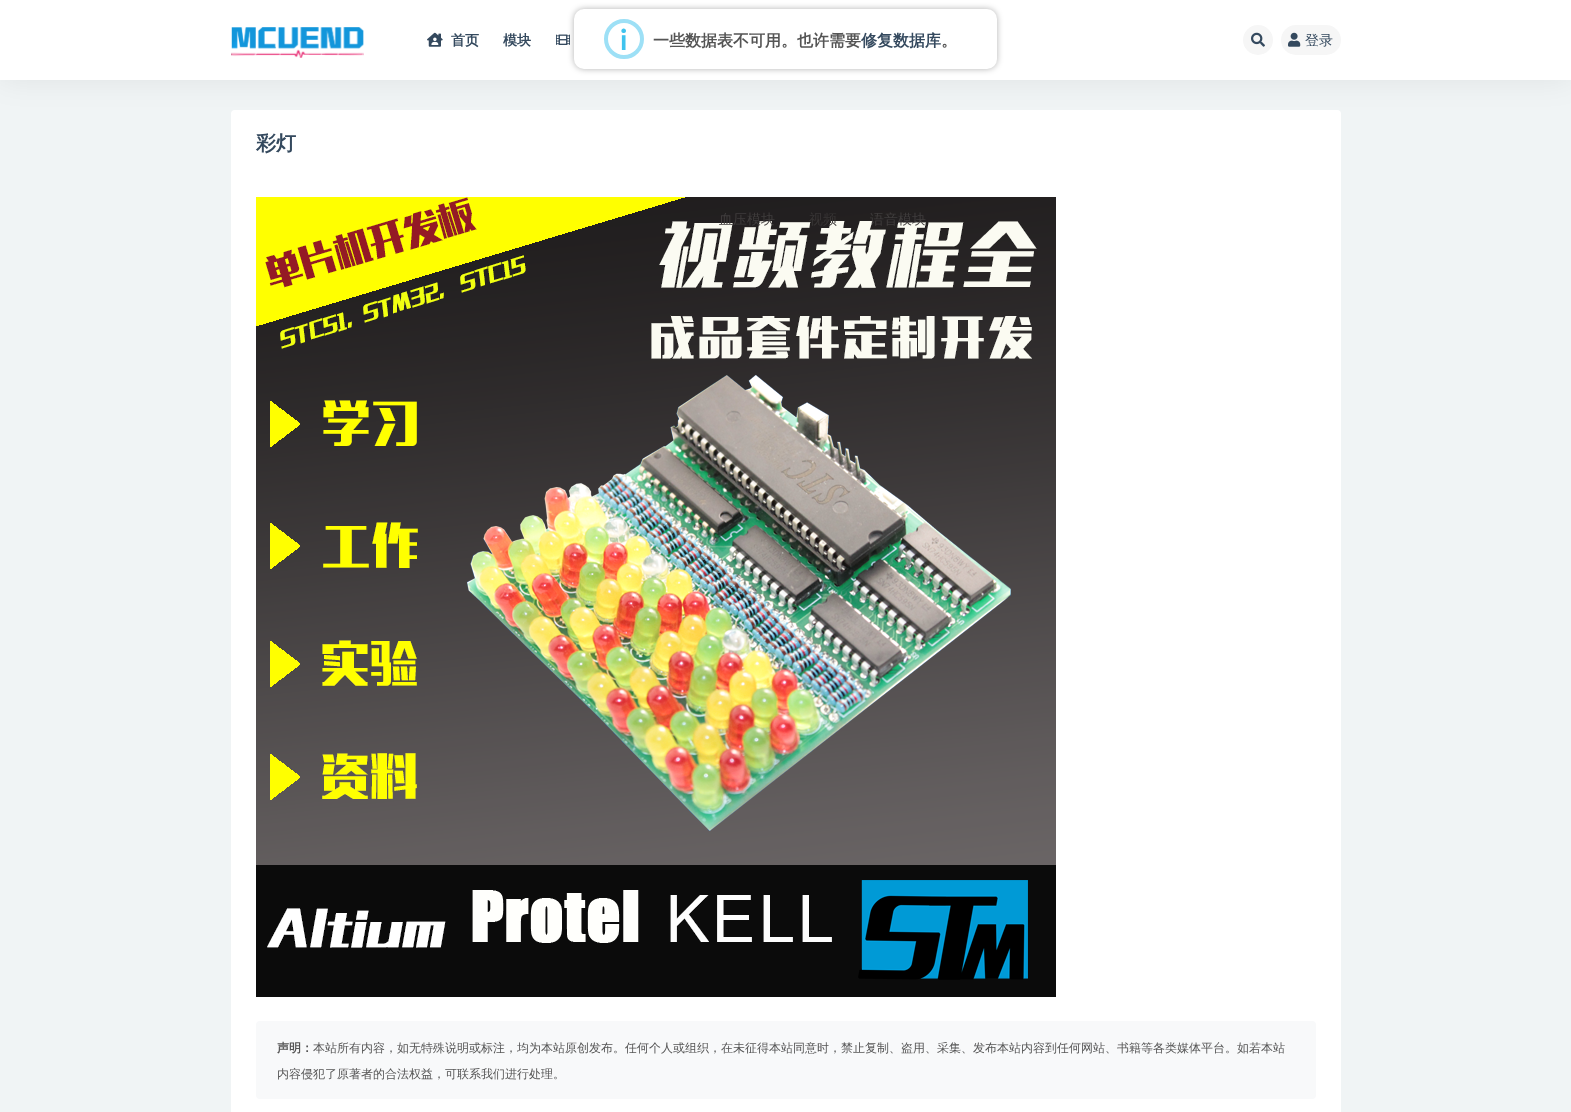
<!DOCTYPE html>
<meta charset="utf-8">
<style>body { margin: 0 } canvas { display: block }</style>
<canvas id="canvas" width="1571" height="1112"></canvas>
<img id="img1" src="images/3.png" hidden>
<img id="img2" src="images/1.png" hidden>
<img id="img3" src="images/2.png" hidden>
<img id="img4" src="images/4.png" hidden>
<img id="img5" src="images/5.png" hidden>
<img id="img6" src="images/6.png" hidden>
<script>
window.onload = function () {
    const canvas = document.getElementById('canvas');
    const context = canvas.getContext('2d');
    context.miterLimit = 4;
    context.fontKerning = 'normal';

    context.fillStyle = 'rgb(240, 244, 245)';
    context.fillRect(0, 0, 1571, 1112);
    context.fillStyle = 'rgb(255, 255, 255)';
    context.beginPath();
    context.roundRect(231, 110, 1110, 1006, 4);
    context.fill();
    context.fillStyle = 'rgba(0, 0, 0, 0.07)';
    context.filter = 'blur(15px)';
    context.beginPath();
    context.rect(0, 0, 1571, 80);
    context.fill();
    context.filter = 'none';
    context.fillStyle = 'rgb(255, 255, 255)';
    context.fillRect(0, 0, 1571, 80);
    context.drawImage(document.getElementById('img1'), 556, 34, 14, 11);
    context.fillStyle = 'rgba(0, 0, 0, 0.3)';
    context.filter = 'blur(3px)';
    context.beginPath();
    context.roundRect(574, 9, 423, 60, 10);
    context.fill();
    context.filter = 'none';
    context.fillStyle = 'rgb(255, 255, 255)';
    context.beginPath();
    context.roundRect(574, 9, 423, 60, 10);
    context.fill();
    context.beginPath();
    context.arc(624, 39, 18, 0, 2 * Math.PI);
    context.strokeStyle = 'rgb(157, 224, 246)';
    context.lineWidth = 4;
    context.stroke();
    context.drawImage(document.getElementById('img2'), 231, 27, 133, 31);
    context.drawImage(document.getElementById('img3'), 427, 32, 16, 15);
    context.fillStyle = 'rgb(246, 246, 246)';
    context.beginPath();
    context.arc(1258, 40, 15, 0, 2 * Math.PI);
    context.fill();
    context.drawImage(document.getElementById('img4'), 1251, 32, 14, 15);
    context.beginPath();
    context.roundRect(1281, 25, 60, 30, 15);
    context.fill();
    context.drawImage(document.getElementById('img5'), 1288, 32, 13, 15);
    context.drawImage(document.getElementById('img6'), 256, 197, 800, 800);
    context.fillStyle = 'rgb(248, 249, 250)';
    context.beginPath();
    context.roundRect(256, 1021, 1060, 78, 4);
    context.fill();
    context.font = 'bold 29px Lato';
    context.fillStyle = 'rgb(63, 195, 238)';
    context.fillText('i', 620, 50);
    context.font = 'bold 16px WenQuanYi Zen Hei';
    context.fillStyle = 'rgb(85, 85, 85)';
    context.fillText('一些数据表不可用。也许需要', 653, 46);
    context.fillStyle = 'rgb(52, 73, 94)';
    context.fillText('修复数据库', 861, 46);
    context.fillStyle = 'rgb(85, 85, 85)';
    context.fillText('。', 941, 46);
    context.font = 'bold 14px WenQuanYi Zen Hei';
    context.fillStyle = 'rgb(52, 73, 94)';
    context.fillText('首页', 451, 45);
    context.fillText('模块', 503, 45);
    context.font = '500 14px WenQuanYi Zen Hei';
    context.fillText('登录', 1305, 45);
    context.font = 'bold 20px WenQuanYi Zen Hei';
    context.fillText('彩灯', 256, 150);
    context.font = 'bold 12px WenQuanYi Zen Hei';
    context.fillStyle = 'rgb(85, 85, 85)';
    context.fillText('声明：', 277, 1052);
    context.font = '500 12px WenQuanYi Zen Hei';
    context.fillText('本站所有内容，如无特殊说明或标注，均为本站原创发布。任何个人或组织，在未征得本站同意时，禁止复制、盗用、采集、发布本站内容到任何网站、书籍等各类媒体平台。如若本站', 313, 1052);
    context.fillText('内容侵犯了原著者的合法权益，可联系我们进行处理。', 277, 1078);
    context.font = '500 14px WenQuanYi Zen Hei';
    context.fillStyle = 'rgb(63, 60, 60)';
    context.fillText('血压模块', 719, 224);
    context.fillStyle = 'rgb(55, 52, 52)';
    context.fillText('视频', 809, 224);
    context.fillStyle = 'rgb(63, 60, 60)';
    context.fillText('语音模块', 870, 224);
};
</script>
